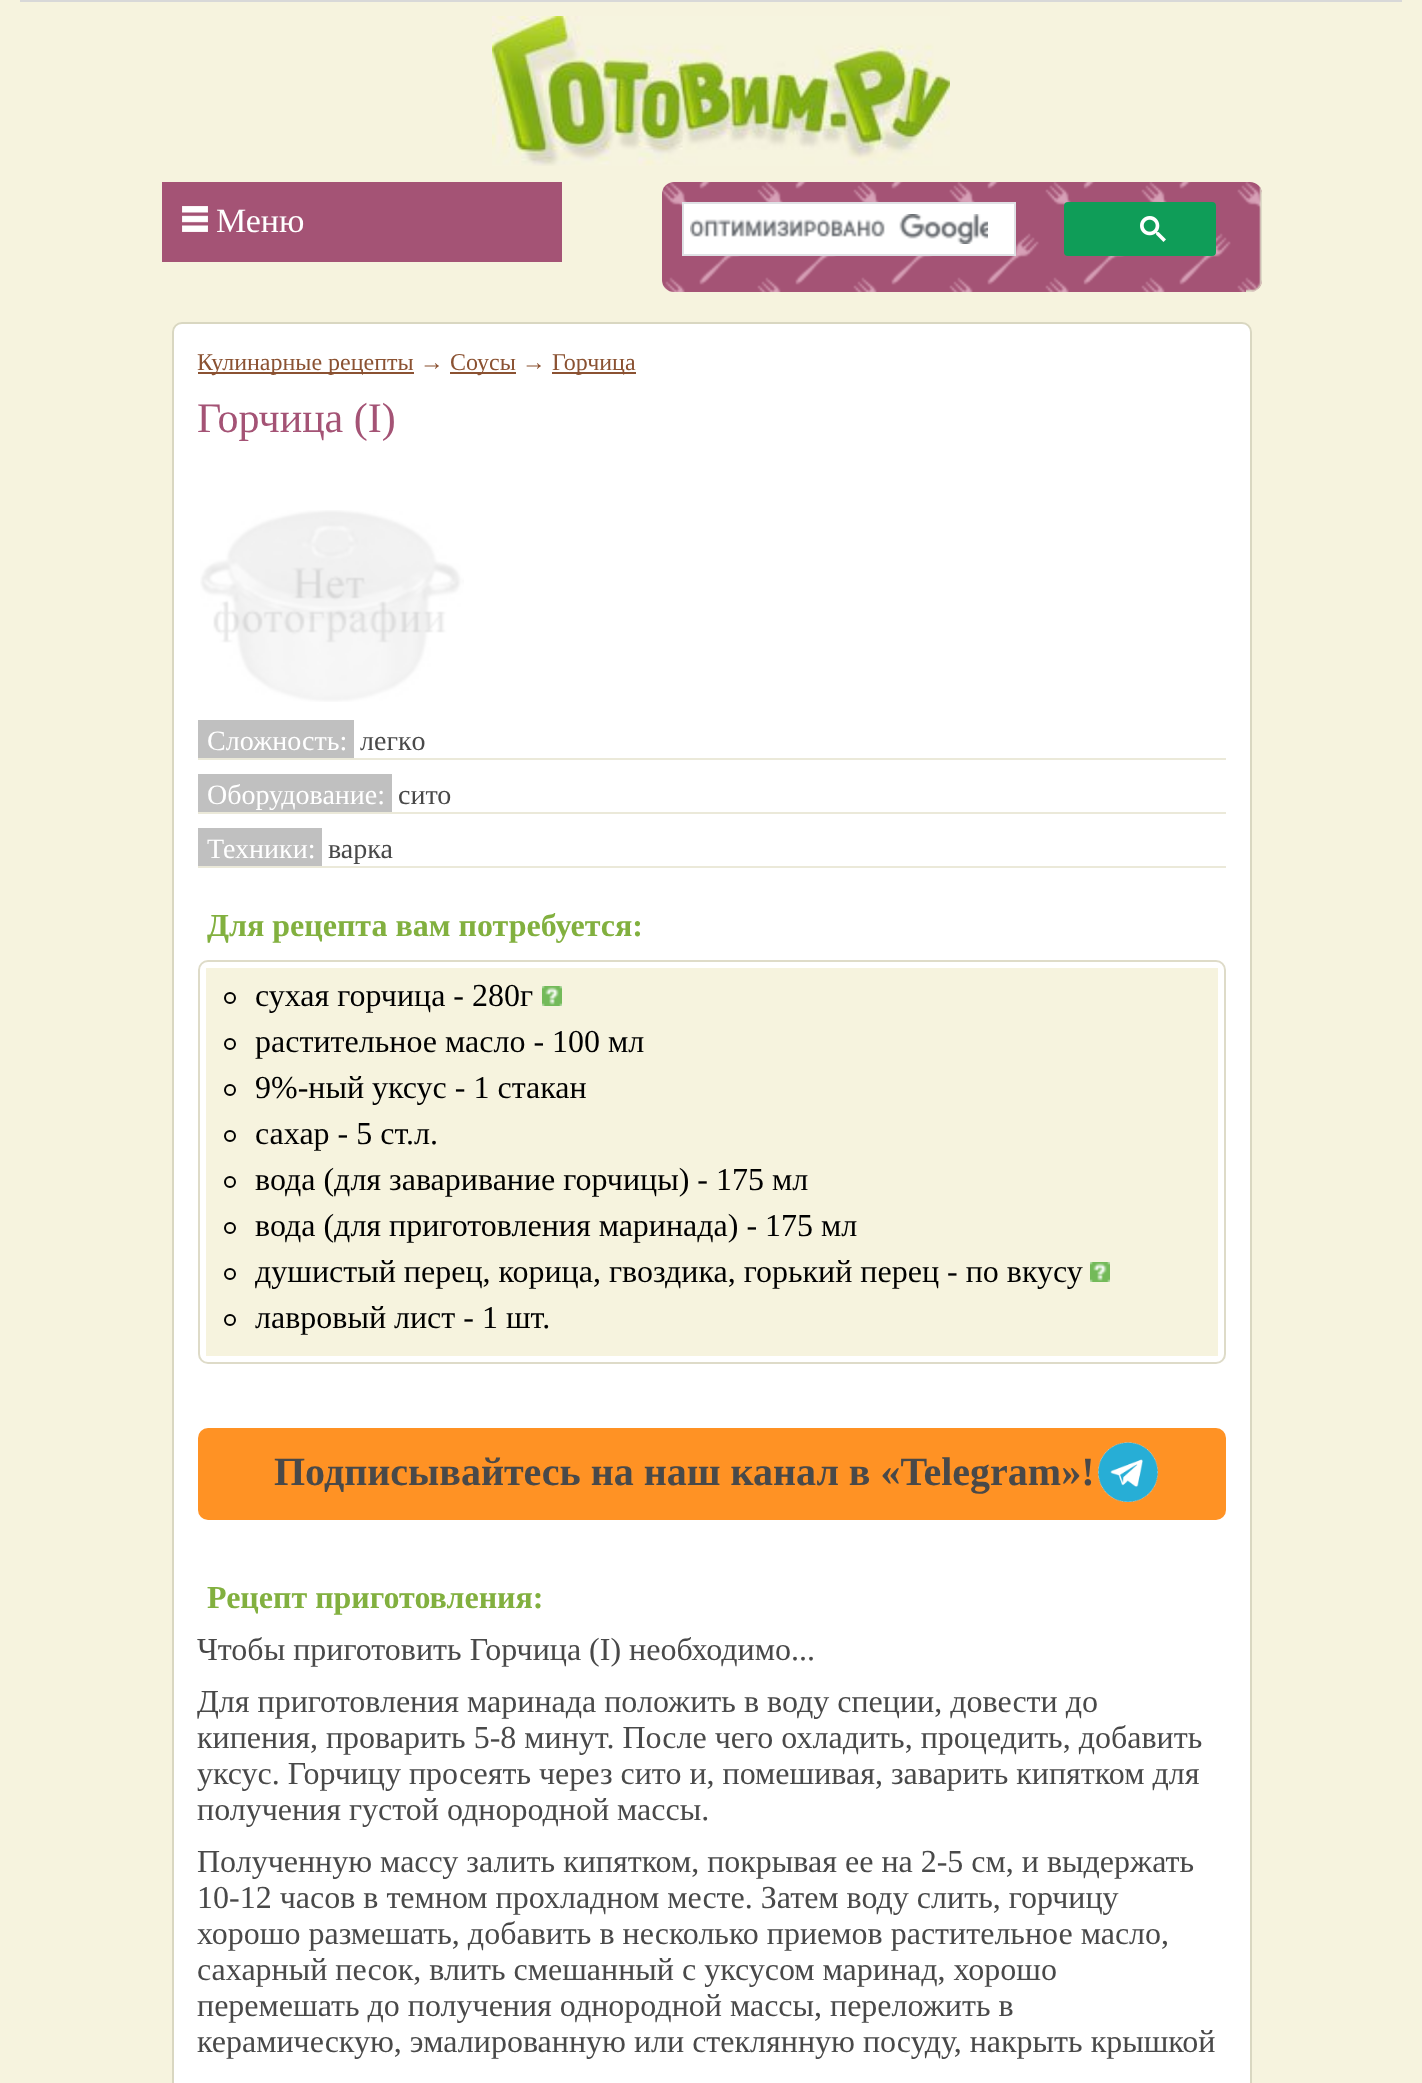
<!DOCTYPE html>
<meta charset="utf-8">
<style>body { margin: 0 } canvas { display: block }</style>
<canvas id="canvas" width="1422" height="2083"></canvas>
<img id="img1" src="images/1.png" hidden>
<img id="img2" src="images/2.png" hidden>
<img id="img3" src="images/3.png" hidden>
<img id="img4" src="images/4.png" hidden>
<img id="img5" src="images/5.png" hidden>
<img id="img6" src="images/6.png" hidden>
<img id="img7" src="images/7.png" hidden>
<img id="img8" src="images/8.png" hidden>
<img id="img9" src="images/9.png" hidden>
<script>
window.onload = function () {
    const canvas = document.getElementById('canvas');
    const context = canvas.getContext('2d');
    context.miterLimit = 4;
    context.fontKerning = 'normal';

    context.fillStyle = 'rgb(246, 243, 222)';
    context.fillRect(0, 0, 1422, 2083);
    context.fillStyle = 'rgb(216, 216, 216)';
    context.fillRect(20, 0, 1382, 2);
    context.drawImage(document.getElementById('img1'), 492, 16, 458, 150);
    context.fillStyle = 'rgb(164, 83, 117)';
    context.fillRect(162, 182, 400, 80);
    context.drawImage(document.getElementById('img2'), 182, 206, 26, 26);
    context.drawImage(document.getElementById('img3'), 662, 182, 600, 110);
    context.drawImage(document.getElementById('img4'), 1246, 187, 16, 105);
    context.fillStyle = 'rgb(255, 255, 255)';
    context.beginPath();
    context.rect(683, 203, 332, 52);
    context.fill();
    context.strokeStyle = 'rgb(223, 225, 229)';
    context.lineWidth = 2;
    context.stroke();
    context.drawImage(document.getElementById('img5'), 690, 214, 298, 30);
    context.fillStyle = 'rgb(15, 157, 88)';
    context.beginPath();
    context.roundRect(1065, 203, 150, 52, 3);
    context.fill();
    context.strokeStyle = 'rgb(15, 157, 88)';
    context.stroke();
    context.drawImage(document.getElementById('img6'), 1140, 216, 26, 26);
    context.fillStyle = 'rgb(255, 255, 255)';
    context.beginPath();
    context.roundRect(173, 323, 1078, 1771, 9);
    context.fill();
    context.strokeStyle = 'rgb(217, 215, 193)';
    context.stroke();
    context.fillStyle = 'rgb(139, 82, 50)';
    context.fillRect(198, 372, 216, 2);
    context.fillRect(450, 372, 66, 2);
    context.fillRect(552, 372, 84, 2);
    context.drawImage(document.getElementById('img7'), 200, 510, 264, 192);
    context.fillStyle = 'rgb(235, 233, 217)';
    context.fillRect(198, 758, 1028, 2);
    context.fillStyle = 'rgb(192, 192, 192)';
    context.fillRect(198, 720, 156, 38);
    context.fillStyle = 'rgb(235, 233, 217)';
    context.fillRect(198, 812, 1028, 2);
    context.fillStyle = 'rgb(192, 192, 192)';
    context.fillRect(198, 774, 194, 38);
    context.fillStyle = 'rgb(235, 233, 217)';
    context.fillRect(198, 866, 1028, 2);
    context.fillStyle = 'rgb(192, 192, 192)';
    context.fillRect(198, 828, 124, 38);
    context.beginPath();
    context.roundRect(199, 961, 1026, 402, 9);
    context.strokeStyle = 'rgb(222, 219, 200)';
    context.stroke();
    context.fillStyle = 'rgb(246, 243, 222)';
    context.fillRect(206, 968, 1012, 388);
    context.beginPath();
    context.arc(230, 998, 5, 0, 2 * Math.PI);
    context.strokeStyle = 'rgb(0, 0, 0)';
    context.stroke();
    context.drawImage(document.getElementById('img8'), 542, 986, 20, 20);
    context.beginPath();
    context.arc(230, 1044, 5, 0, 2 * Math.PI);
    context.stroke();
    context.beginPath();
    context.arc(230, 1090, 5, 0, 2 * Math.PI);
    context.stroke();
    context.beginPath();
    context.arc(230, 1136, 5, 0, 2 * Math.PI);
    context.stroke();
    context.beginPath();
    context.arc(230, 1182, 5, 0, 2 * Math.PI);
    context.stroke();
    context.beginPath();
    context.arc(230, 1228, 5, 0, 2 * Math.PI);
    context.stroke();
    context.beginPath();
    context.arc(230, 1274, 5, 0, 2 * Math.PI);
    context.stroke();
    context.drawImage(document.getElementById('img8'), 1090, 1262, 20, 20);
    context.beginPath();
    context.arc(230, 1320, 5, 0, 2 * Math.PI);
    context.stroke();
    context.fillStyle = 'rgb(255, 146, 36)';
    context.beginPath();
    context.roundRect(198, 1428, 1028, 92, 10);
    context.fill();
    context.drawImage(document.getElementById('img9'), 1098, 1442, 60, 60);
    context.font = '34px Liberation Serif';
    context.fillStyle = 'rgb(255, 255, 255)';
    context.fillText('Меню', 216, 232);
    context.font = '24px Liberation Serif';
    context.fillStyle = 'rgb(139, 82, 50)';
    context.fillText('Кулинарные рецепты →', 197, 370);
    context.fillText('Соусы →', 450, 370);
    context.fillText('Горчица', 552, 370);
    context.font = '42px Liberation Serif';
    context.fillStyle = 'rgb(164, 83, 117)';
    context.fillText('Горчица (I)', 197, 432);
    context.font = '28px Liberation Serif';
    context.fillStyle = 'rgb(255, 255, 255)';
    context.fillText('Сложность:', 207, 750);
    context.fillStyle = 'rgb(73, 73, 73)';
    context.fillText('легкo', 360, 750);
    context.fillStyle = 'rgb(255, 255, 255)';
    context.fillText('Оборудование:', 207, 804);
    context.fillStyle = 'rgb(73, 73, 73)';
    context.fillText('сито', 398, 804);
    context.fillStyle = 'rgb(255, 255, 255)';
    context.fillText('Техники:', 207, 858);
    context.fillStyle = 'rgb(73, 73, 73)';
    context.fillText('варка', 328, 858);
    context.font = 'bold 32px Liberation Serif';
    context.fillStyle = 'rgb(130, 176, 63)';
    context.fillText('Для рецепта вам потребуется:', 207, 936);
    context.font = '32px Liberation Serif';
    context.fillStyle = 'rgb(0, 0, 0)';
    context.fillText('сухая горчица - 280г', 255, 1006);
    context.fillText('растительное масло - 100 мл', 255, 1052);
    context.fillText('9%-ный уксус - 1 стакан', 255, 1098);
    context.fillText('сахар - 5 ст.л.', 255, 1144);
    context.fillText('вода (для заваривание горчицы) - 175 мл', 255, 1190);
    context.fillText('вода (для приготовления маринада) - 175 мл', 255, 1236);
    context.fillText('душистый перец, корица, гвоздика, горький перец - по вкусу', 255, 1282);
    context.fillText('лавровый лист - 1 шт.', 255, 1328);
    context.font = 'bold 40px Liberation Serif';
    context.fillStyle = 'rgb(73, 73, 73)';
    context.fillText('Подписывайтесь на наш канал в «Telegram»!', 274, 1485);
    context.font = 'bold 32px Liberation Serif';
    context.fillStyle = 'rgb(130, 176, 63)';
    context.fillText('Рецепт приготовления:', 207, 1608);
    context.font = '32px Liberation Serif';
    context.fillStyle = 'rgb(73, 73, 73)';
    context.fillText('Чтобы приготовить Горчица (I) необходимо...', 197, 1660);
    context.fillText('Для приготовления маринада положить в воду специи, довести до', 197, 1712);
    context.fillText('кипения, проварить 5-8 минут. После чего охладить, процедить, добавить', 197, 1748);
    context.fillText('уксус. Горчицу просеять через сито и, помешивая, заварить кипятком для', 197, 1784);
    context.fillText('получения густой однородной массы.', 197, 1820);
    context.fillText('Полученную массу залить кипятком, покрывая ее на 2-5 см, и выдержать', 197, 1872);
    context.fillText('10-12 часов в темном прохладном месте. Затем воду слить, горчицу', 197, 1908);
    context.fillText('хорошо размешать, добавить в несколько приемов растительное масло,', 197, 1944);
    context.fillText('сахарный песок, влить смешанный с уксусом маринад, хорошо', 197, 1980);
    context.fillText('перемешать до получения однородной массы, переложить в', 197, 2016);
    context.fillText('керамическую, эмалированную или стеклянную посуду, накрыть крышкой', 197, 2052);
};
</script>
